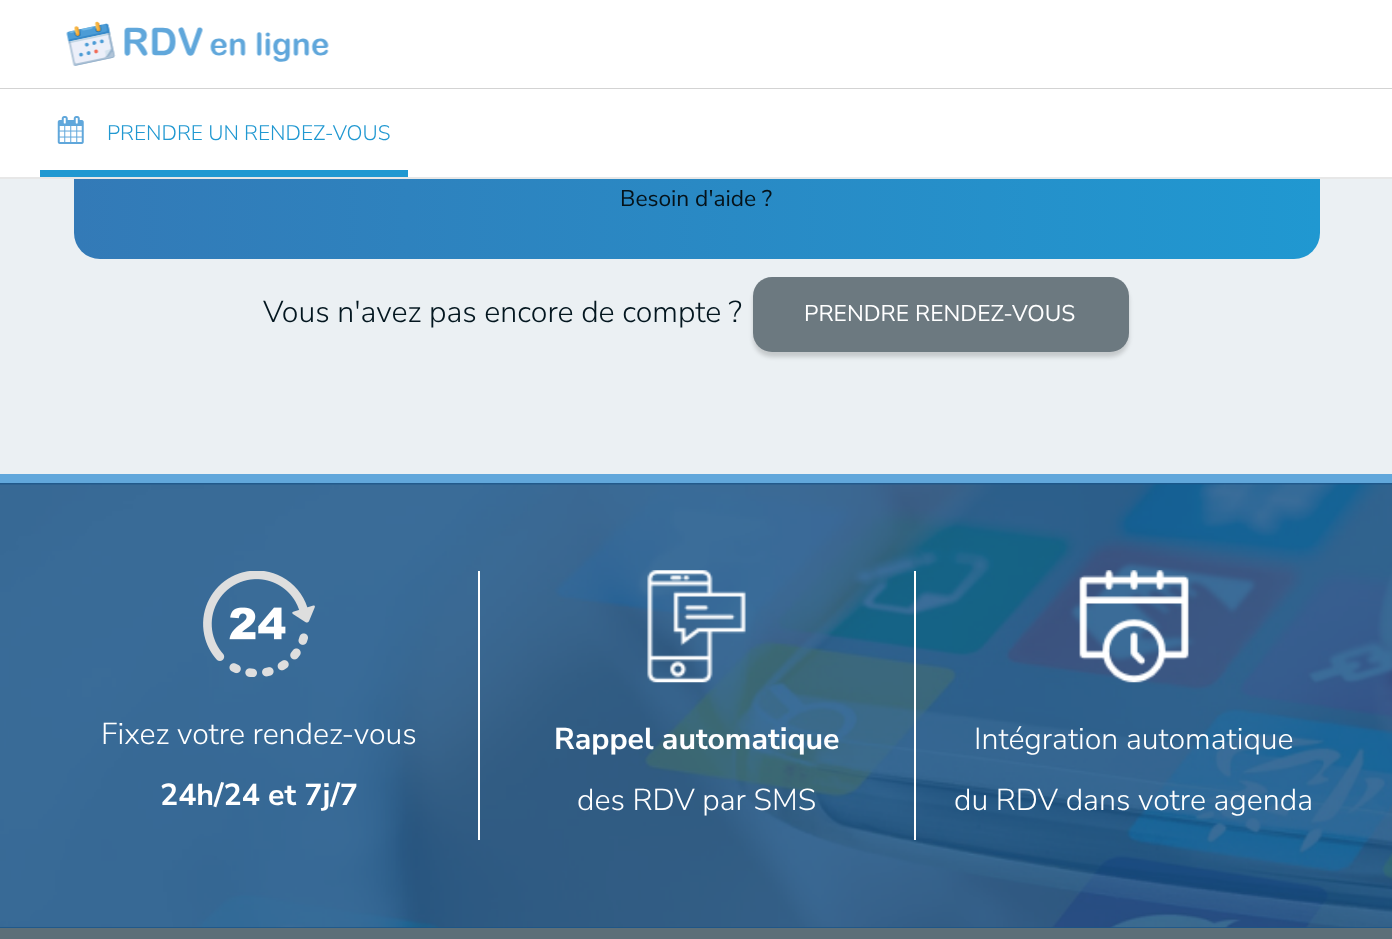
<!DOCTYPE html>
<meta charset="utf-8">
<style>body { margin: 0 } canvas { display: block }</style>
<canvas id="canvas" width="1392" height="939"></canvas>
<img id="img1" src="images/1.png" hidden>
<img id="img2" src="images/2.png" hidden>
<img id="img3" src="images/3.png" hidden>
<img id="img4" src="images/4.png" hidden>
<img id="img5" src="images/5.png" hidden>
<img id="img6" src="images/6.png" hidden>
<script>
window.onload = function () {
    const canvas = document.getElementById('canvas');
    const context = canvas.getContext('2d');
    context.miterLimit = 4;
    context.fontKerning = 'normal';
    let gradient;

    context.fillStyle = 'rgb(235, 240, 243)';
    context.fillRect(0, 0, 1392, 939);
    gradient = context.createLinearGradient(74, 32, 1320, 32);
    gradient.addColorStop(0, 'rgb(51, 122, 183)');
    gradient.addColorStop(1, 'rgb(32, 152, 209)');
    context.fillStyle = gradient;
    context.beginPath();
    context.roundRect(74, -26, 1246, 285, 26);
    context.fill();
    context.fillStyle = 'rgb(255, 255, 255)';
    context.fillRect(0, 0, 1392, 88);
    context.drawImage(document.getElementById('img1'), 66, 21, 263, 45);
    context.strokeStyle = 'rgb(211, 211, 211)';
    context.lineWidth = 2;
    context.strokeRect(1, 89, 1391, 85);
    context.fillRect(0, 89, 1392, 88);
    context.fillStyle = 'rgb(231, 231, 231)';
    context.fillRect(0, 177, 1392, 2);
    context.drawImage(document.getElementById('img2'), 57, 116, 27, 28);
    context.fillStyle = 'rgb(32, 152, 209)';
    context.fillRect(40, 170, 368, 7);
    context.fillStyle = 'rgba(0, 0, 0, 0.16)';
    context.filter = 'blur(2px)';
    context.beginPath();
    context.roundRect(753, 282, 376, 75, 19);
    context.fill();
    context.filter = 'none';
    context.fillStyle = 'rgb(108, 121, 128)';
    context.beginPath();
    context.roundRect(753, 277, 376, 75, 19);
    context.fill();
    context.fillStyle = 'rgb(25, 84, 136)';
    context.fillRect(0, 483, 1392, 445);
    context.drawImage(document.getElementById('img3'), 0, 483, 1392, 445);
    context.fillStyle = 'rgb(97, 167, 219)';
    context.fillRect(0, 474, 1392, 9);
    context.drawImage(document.getElementById('img4'), 203, 571, 112, 106);
    context.fillStyle = 'rgb(255, 255, 255)';
    context.fillRect(914, 571, 2, 269);
    context.fillRect(478, 571, 2, 269);
    context.drawImage(document.getElementById('img5'), 647, 570, 99, 113);
    context.drawImage(document.getElementById('img6'), 1079, 570, 110, 113);
    context.fillStyle = 'rgb(93, 111, 120)';
    context.fillRect(0, 928, 1392, 11);
    context.font = '300 21px Nunito Sans';
    context.fillStyle = 'rgb(32, 152, 209)';
    context.fillText('PRENDRE UN RENDEZ-VOUS', 107, 140);
    context.font = '22.75px Nunito Sans';
    context.fillStyle = 'rgb(5, 18, 25)';
    context.fillText('Besoin d\'aide ?', 620, 206);
    context.font = '300 30.3px Nunito Sans';
    context.fillStyle = 'rgb(3, 22, 31)';
    context.fillText('Vous n\'avez pas encore de compte ?', 263, 322);
    context.font = '22.75px Nunito Sans';
    context.fillStyle = 'rgb(255, 255, 255)';
    context.fillText('PRENDRE RENDEZ-VOUS', 804, 321);
    context.font = '300 30.3px Nunito Sans';
    context.fillText('Fixez votre rendez-vous', 101, 744);
    context.font = 'bold 30.3px Nunito Sans';
    context.fillText('24h/24 et 7j/7', 160, 805);
    context.fillText('Rappel automatique', 554, 749);
    context.font = '300 30.3px Nunito Sans';
    context.fillText('des RDV par SMS', 577, 810);
    context.fillText('Intégration automatique', 974, 749);
    context.fillText('du RDV dans votre agenda', 954, 810);
};
</script>
